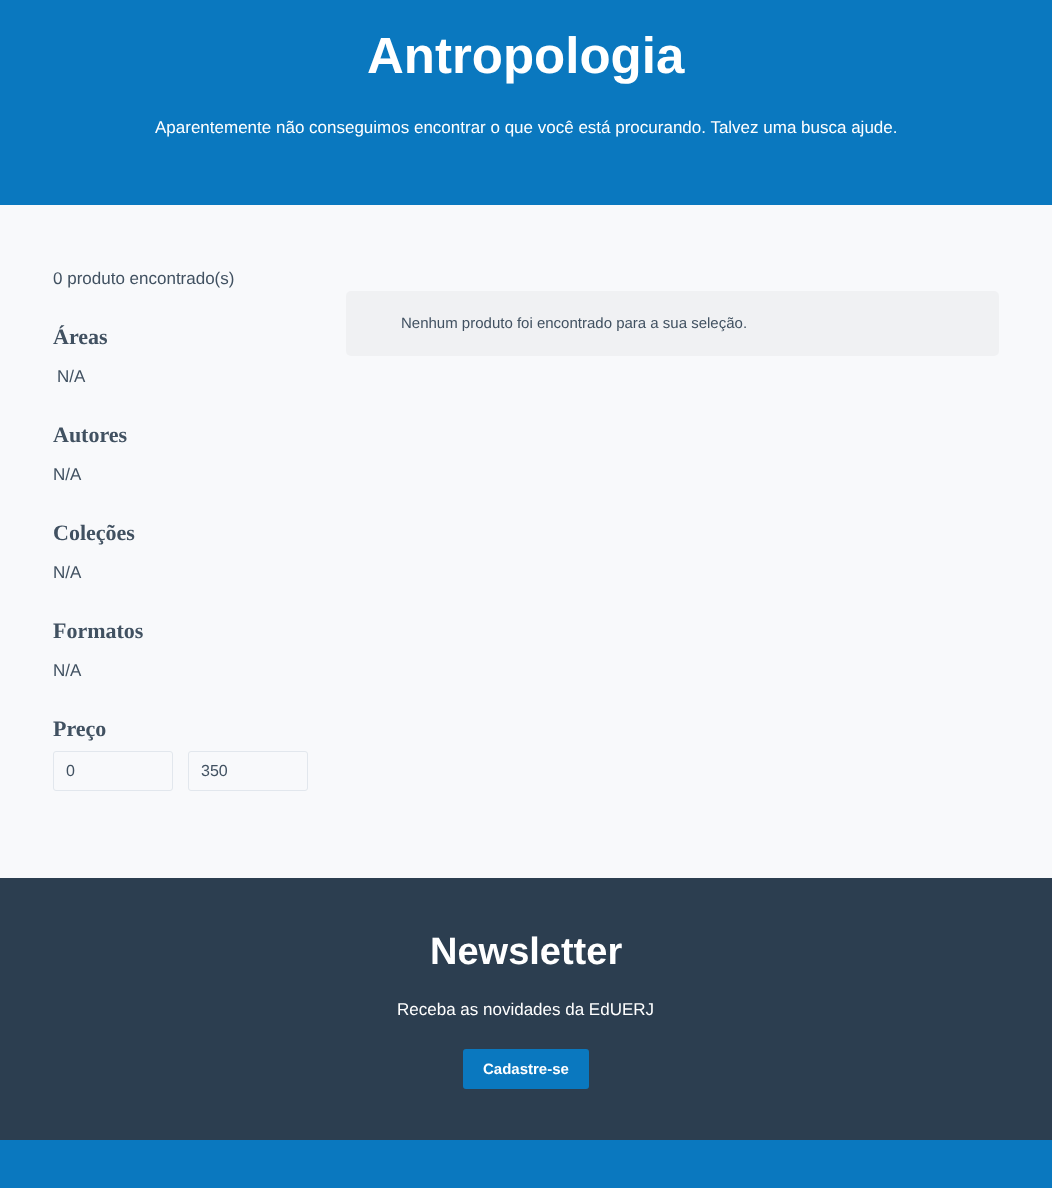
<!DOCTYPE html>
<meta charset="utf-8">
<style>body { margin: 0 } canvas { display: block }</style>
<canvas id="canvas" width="1052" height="1188"></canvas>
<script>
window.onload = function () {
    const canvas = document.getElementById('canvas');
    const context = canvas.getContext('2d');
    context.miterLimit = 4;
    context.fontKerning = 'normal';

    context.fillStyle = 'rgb(248, 249, 251)';
    context.fillRect(0, 0, 1052, 1188);
    context.fillStyle = 'rgb(10, 120, 191)';
    context.fillRect(0, 0, 1052, 205);
    context.beginPath();
    context.roundRect(53.5, 751.5, 119, 39, 2.5);
    context.strokeStyle = 'rgb(226, 231, 237)';
    context.stroke();
    context.beginPath();
    context.roundRect(188.5, 751.5, 119, 39, 2.5);
    context.stroke();
    context.fillStyle = 'rgb(240, 241, 243)';
    context.beginPath();
    context.roundRect(346, 291, 653, 65, 5);
    context.fill();
    context.fillStyle = 'rgb(44, 62, 80)';
    context.fillRect(0, 878, 1052, 262);
    context.fillStyle = 'rgb(10, 120, 191)';
    context.beginPath();
    context.roundRect(463, 1049, 126, 40, 3);
    context.fill();
    context.fillRect(0, 1140, 1052, 48);
    context.font = 'bold 51px Liberation Sans';
    context.fillStyle = 'rgb(255, 255, 255)';
    context.fillText('Antropologia', 367, 73);
    context.font = '17px Liberation Sans';
    context.fillText('Aparentemente não conseguimos encontrar o que você está procurando. Talvez uma busca ajude.', 155, 133);
    context.fillStyle = 'rgb(65, 81, 97)';
    context.fillText('0 produto encontrado(s)', 53, 284);
    context.font = 'bold 22px Liberation Serif';
    context.fillText('Áreas', 53, 344);
    context.font = '17px Liberation Sans';
    context.fillText('N/A', 57, 382);
    context.font = 'bold 22px Liberation Serif';
    context.fillText('Autores', 53, 442);
    context.font = '17px Liberation Sans';
    context.fillText('N/A', 53, 480);
    context.font = 'bold 22px Liberation Serif';
    context.fillText('Coleções', 53, 540);
    context.font = '17px Liberation Sans';
    context.fillText('N/A', 53, 578);
    context.font = 'bold 22px Liberation Serif';
    context.fillText('Formatos', 53, 638);
    context.font = '17px Liberation Sans';
    context.fillText('N/A', 53, 676);
    context.font = 'bold 22px Liberation Serif';
    context.fillText('Preço', 53, 736);
    context.font = '16px Liberation Sans';
    context.fillText('0', 66, 776);
    context.fillText('350', 201, 776);
    context.font = '15px Liberation Sans';
    context.fillText('Nenhum produto foi encontrado para a sua seleção.', 401, 328);
    context.font = 'bold 38px Liberation Sans';
    context.fillStyle = 'rgb(255, 255, 255)';
    context.fillText('Newsletter', 430, 964);
    context.font = '17px Liberation Sans';
    context.fillText('Receba as novidades da EdUERJ', 397, 1015);
    context.font = 'bold 15px Liberation Sans';
    context.fillText('Cadastre-se', 483, 1074);
};
</script>
